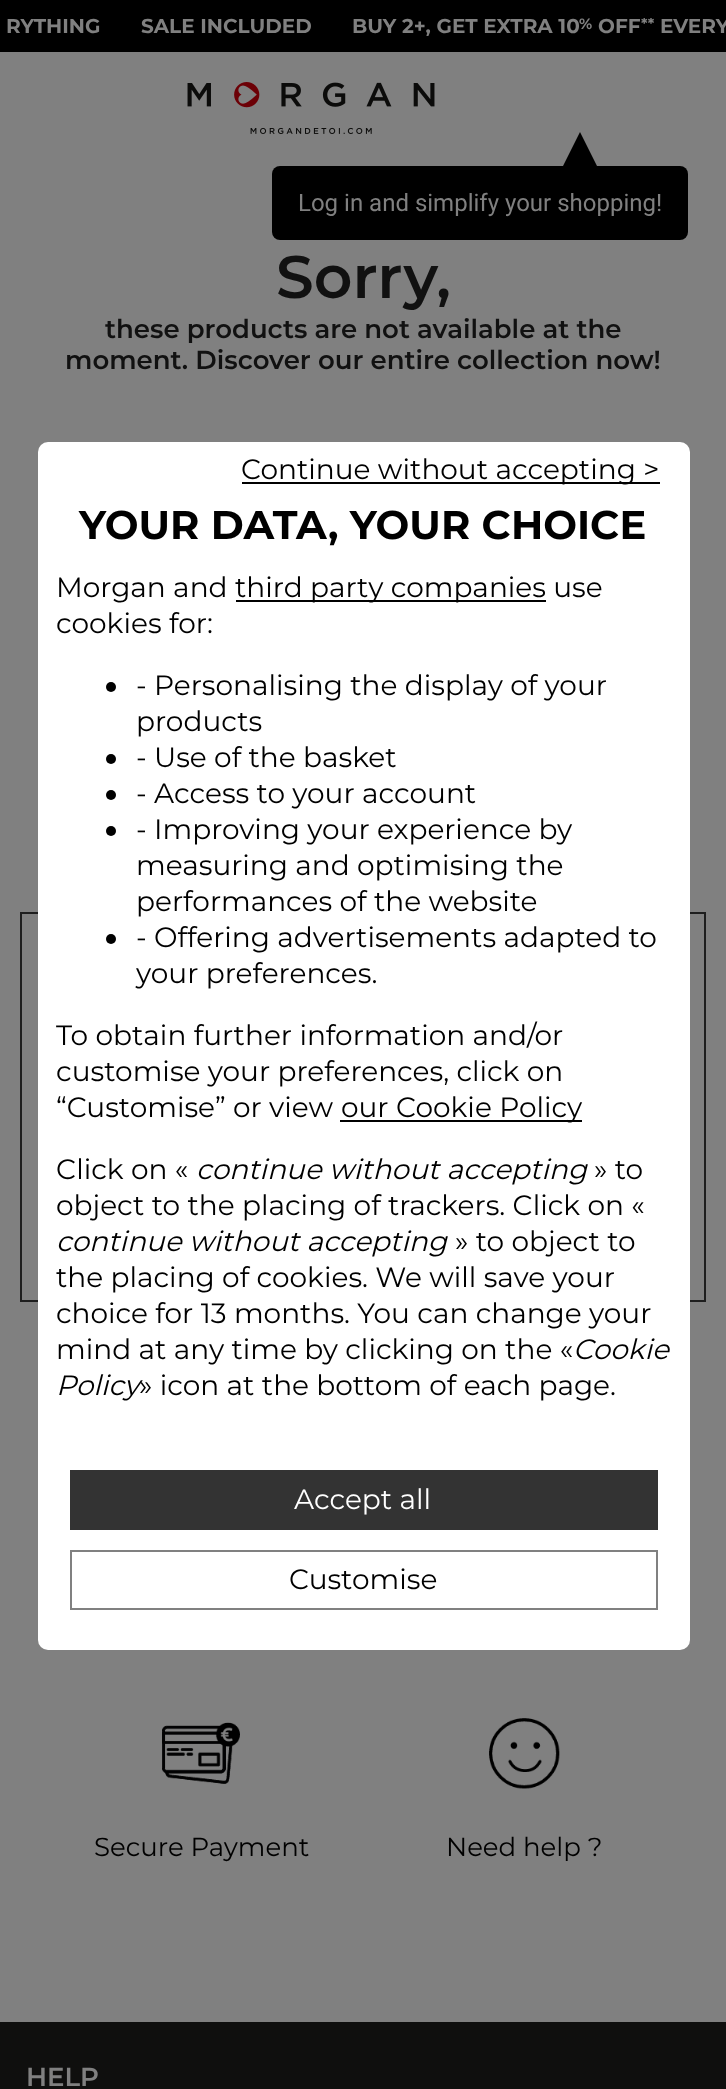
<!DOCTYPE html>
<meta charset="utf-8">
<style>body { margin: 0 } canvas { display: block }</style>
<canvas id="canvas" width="726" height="2089"></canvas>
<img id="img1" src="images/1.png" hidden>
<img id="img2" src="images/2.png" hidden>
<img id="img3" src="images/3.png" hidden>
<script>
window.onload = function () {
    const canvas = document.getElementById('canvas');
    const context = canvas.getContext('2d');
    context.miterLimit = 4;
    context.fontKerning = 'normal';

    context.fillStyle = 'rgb(128, 128, 128)';
    context.fillRect(0, 0, 726, 2089);
    context.fillStyle = 'rgb(0, 0, 0)';
    context.fillRect(0, 0, 726, 52);
    context.drawImage(document.getElementById('img1'), 187, 82, 248, 52);
    context.beginPath();
    context.roundRect(272, 166, 416, 74, 8);
    context.fill();
    context.beginPath();
    context.moveTo(598, 168);
    context.lineTo(562, 168);
    context.lineTo(580, 132);
    context.closePath();
    context.fill();
    context.strokeStyle = 'rgb(30, 30, 30)';
    context.lineWidth = 2;
    context.strokeRect(21, 913, 684, 388);
    context.drawImage(document.getElementById('img2'), 162, 1722, 78, 62);
    context.drawImage(document.getElementById('img3'), 489, 1718, 71, 71);
    context.fillStyle = 'rgb(15, 15, 14)';
    context.fillRect(0, 2022, 726, 67);
    context.fillStyle = 'rgb(255, 255, 255)';
    context.beginPath();
    context.roundRect(38, 442, 652, 1208, 10);
    context.fill();
    context.fillStyle = 'rgb(0, 0, 0)';
    context.fillRect(242, 482, 418, 2);
    context.fillStyle = 'rgb(51, 51, 51)';
    context.fillRect(70, 1470, 588, 60);
    context.strokeStyle = 'rgb(128, 128, 128)';
    context.strokeRect(71, 1551, 586, 58);
    context.fillStyle = 'rgb(0, 0, 0)';
    context.fillRect(236, 600, 310, 2);
    context.beginPath();
    context.arc(111, 687, 5, 0, 2 * Math.PI);
    context.fill();
    context.beginPath();
    context.arc(111, 759, 5, 0, 2 * Math.PI);
    context.fill();
    context.beginPath();
    context.arc(111, 795, 5, 0, 2 * Math.PI);
    context.fill();
    context.beginPath();
    context.arc(111, 831, 5, 0, 2 * Math.PI);
    context.fill();
    context.beginPath();
    context.arc(111, 939, 5, 0, 2 * Math.PI);
    context.fill();
    context.fillRect(340, 1120, 242, 2);
    context.font = 'bold 20px Montserrat';
    context.fillStyle = 'rgb(128, 128, 128)';
    context.fillText('RYTHING', 6, 33);
    context.fillText('SALE INCLUDED', 141, 33);
    context.fillText('BUY 2+, GET EXTRA 10', 352, 33);
    context.font = 'bold 15px Montserrat';
    context.fillText('%', 579, 29);
    context.font = 'bold 20px Montserrat';
    context.fillText('OFF', 598, 33);
    context.font = 'bold 15px Montserrat';
    context.fillText('**', 641, 29);
    context.font = 'bold 20px Montserrat';
    context.fillText('EVERY', 660, 33);
    context.font = '24px Roboto';
    context.fillText('Log in and simplify your shopping!', 298, 211);
    context.font = '600 60px Montserrat';
    context.fillStyle = 'rgb(17, 17, 17)';
    context.fillText('Sorry,', 276, 298);
    context.font = '600 26px Montserrat';
    context.fillText('these products are not available at the', 105, 338);
    context.fillText('moment. Discover our entire collection now!', 65, 369);
    context.font = '26px Montserrat';
    context.fillStyle = 'rgb(0, 0, 0)';
    context.fillText('Secure Payment', 94, 1856);
    context.fillText('Need help ?', 446, 1856);
    context.font = '600 26px Montserrat';
    context.fillStyle = 'rgb(128, 128, 128)';
    context.fillText('HELP', 26, 2086);
    context.font = '28px Montserrat';
    context.fillStyle = 'rgb(0, 0, 0)';
    context.fillText('Continue without accepting >', 241, 479);
    context.fillStyle = 'rgb(255, 255, 255)';
    context.fillText('Accept all', 294, 1509);
    context.fillStyle = 'rgb(0, 0, 0)';
    context.fillText('Customise', 289, 1589);
    context.font = 'bold 40px Montserrat';
    context.fillText('YOUR DATA, YOUR CHOICE', 79, 539);
    context.font = '28px Montserrat';
    context.fillText('Morgan and', 56, 597);
    context.fillText('third party companies use', 235, 597);
    context.fillText('cookies for:', 56, 633);
    context.fillText('- Personalising the display of your', 136, 695);
    context.fillText('products', 136, 731);
    context.fillText('- Use of the basket', 136, 767);
    context.fillText('- Access to your account', 136, 803);
    context.fillText('- Improving your experience by', 136, 839);
    context.fillText('measuring and optimising the', 136, 875);
    context.fillText('performances of the website', 136, 911);
    context.fillText('- Offering advertisements adapted to', 136, 947);
    context.fillText('your preferences.', 136, 983);
    context.fillText('To obtain further information and/or', 56, 1045);
    context.fillText('customise your preferences, click on', 56, 1081);
    context.fillText('“Customise” or view', 56, 1117);
    context.fillText('our Cookie Policy', 341, 1117);
    context.fillText('Click on «', 56, 1179);
    context.font = 'italic 28px Montserrat';
    context.fillText('continue without accepting', 196, 1179);
    context.font = '28px Montserrat';
    context.fillText('» to', 594, 1179);
    context.fillText('object to the placing of trackers. Click on «', 56, 1215);
    context.font = 'italic 28px Montserrat';
    context.fillText('continue without accepting', 56, 1251);
    context.font = '28px Montserrat';
    context.fillText('» to object to', 455, 1251);
    context.fillText('the placing of cookies. We will save your', 56, 1287);
    context.fillText('choice for 13 months. You can change your', 56, 1323);
    context.fillText('mind at any time by clicking on the «', 56, 1359);
    context.font = 'italic 28px Montserrat';
    context.fillText('Cookie', 573, 1359);
    context.fillText('Policy', 56, 1395);
    context.font = '28px Montserrat';
    context.fillText('» icon at the bottom of each page.', 139, 1395);
};
</script>
